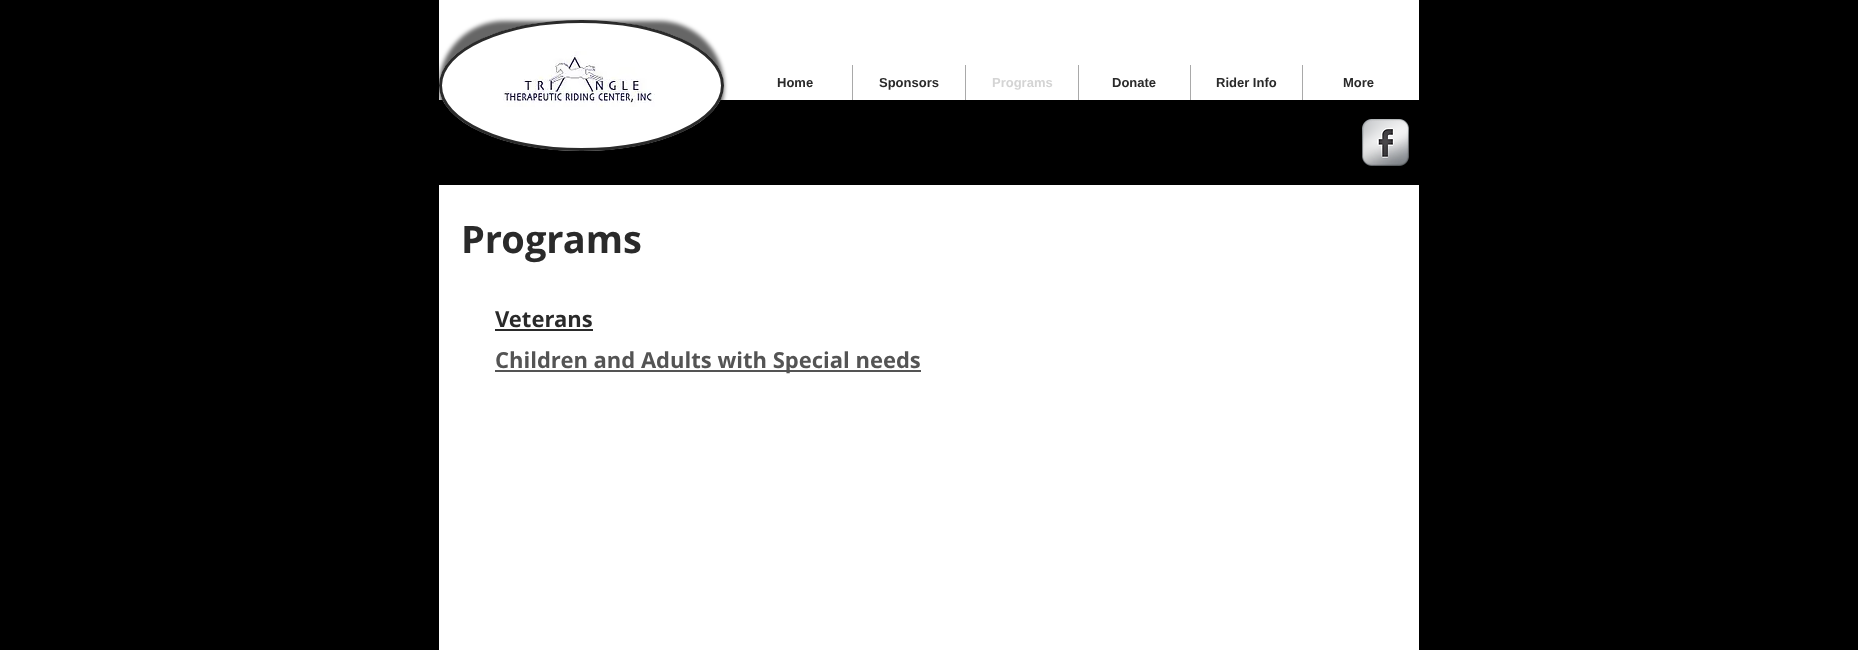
<!DOCTYPE html>
<meta charset="utf-8">
<style>body { margin: 0 } canvas { display: block }</style>
<canvas id="canvas" width="1858" height="650"></canvas>
<img id="img1" src="images/1.png" hidden>
<img id="img2" src="images/2.png" hidden>
<script>
window.onload = function () {
    const canvas = document.getElementById('canvas');
    const context = canvas.getContext('2d');
    context.miterLimit = 4;
    context.fontKerning = 'normal';

    context.fillStyle = 'rgb(0, 0, 0)';
    context.fillRect(0, 0, 1858, 650);
    context.fillStyle = 'rgb(255, 255, 255)';
    context.fillRect(439, 0, 980, 100);
    context.fillStyle = 'rgba(0, 0, 0, 0.6)';
    context.filter = 'blur(2px)';
    context.beginPath();
    context.roundRect(439, 21, 285, 131, 65.5);
    context.fill();
    context.filter = 'none';
    context.fillStyle = 'rgb(255, 255, 255)';
    context.beginPath();
    context.ellipse(581.5, 85.5, 142.5, 65.5, 0, 0, 2 * Math.PI);
    context.fill();
    context.beginPath();
    context.moveTo(581.5, 21.5);
    context.bezierCurveTo(659.5, 21.5, 722.5, 50, 722.5, 85.5);
    context.bezierCurveTo(722.5, 121, 659.5, 149.5, 581.5, 149.5);
    context.bezierCurveTo(503.5, 149.5, 440.5, 121, 440.5, 85.5);
    context.bezierCurveTo(440.5, 50, 503.5, 21.5, 581.5, 21.5);
    context.closePath();
    context.strokeStyle = 'rgb(42, 42, 42)';
    context.lineWidth = 3;
    context.stroke();
    context.drawImage(document.getElementById('img1'), 503, 51, 152, 56);
    context.fillStyle = 'rgb(169, 169, 169)';
    context.fillRect(852, 65, 1, 35);
    context.fillRect(965, 65, 1, 35);
    context.fillRect(1078, 65, 1, 35);
    context.fillRect(1190, 65, 1, 35);
    context.fillRect(1302, 65, 1, 35);
    context.drawImage(document.getElementById('img2'), 1362, 119, 47, 47);
    context.fillStyle = 'rgb(255, 255, 255)';
    context.fillRect(439, 185, 980, 465);
    context.fillStyle = 'rgb(42, 42, 42)';
    context.fillRect(495, 329, 98, 2);
    context.fillStyle = 'rgb(84, 84, 84)';
    context.fillRect(495, 370, 426, 2);
    context.font = 'bold 13px Liberation Sans';
    context.fillStyle = 'rgb(42, 42, 42)';
    context.fillText('Home', 777, 87);
    context.fillText('Sponsors', 879, 87);
    context.fillStyle = 'rgb(212, 212, 212)';
    context.fillText('Programs', 992, 87);
    context.fillStyle = 'rgb(42, 42, 42)';
    context.fillText('Donate', 1112, 87);
    context.fillText('Rider Info', 1216, 87);
    context.fillText('More', 1343, 87);
    context.font = 'bold 38px Open Sans';
    context.fillText('Programs', 461, 253);
    context.font = 'bold 22px Open Sans';
    context.fillText('Veterans', 495, 327);
    context.fillStyle = 'rgb(84, 84, 84)';
    context.fillText('Children and Adults with Special needs', 495, 368);
};
</script>
